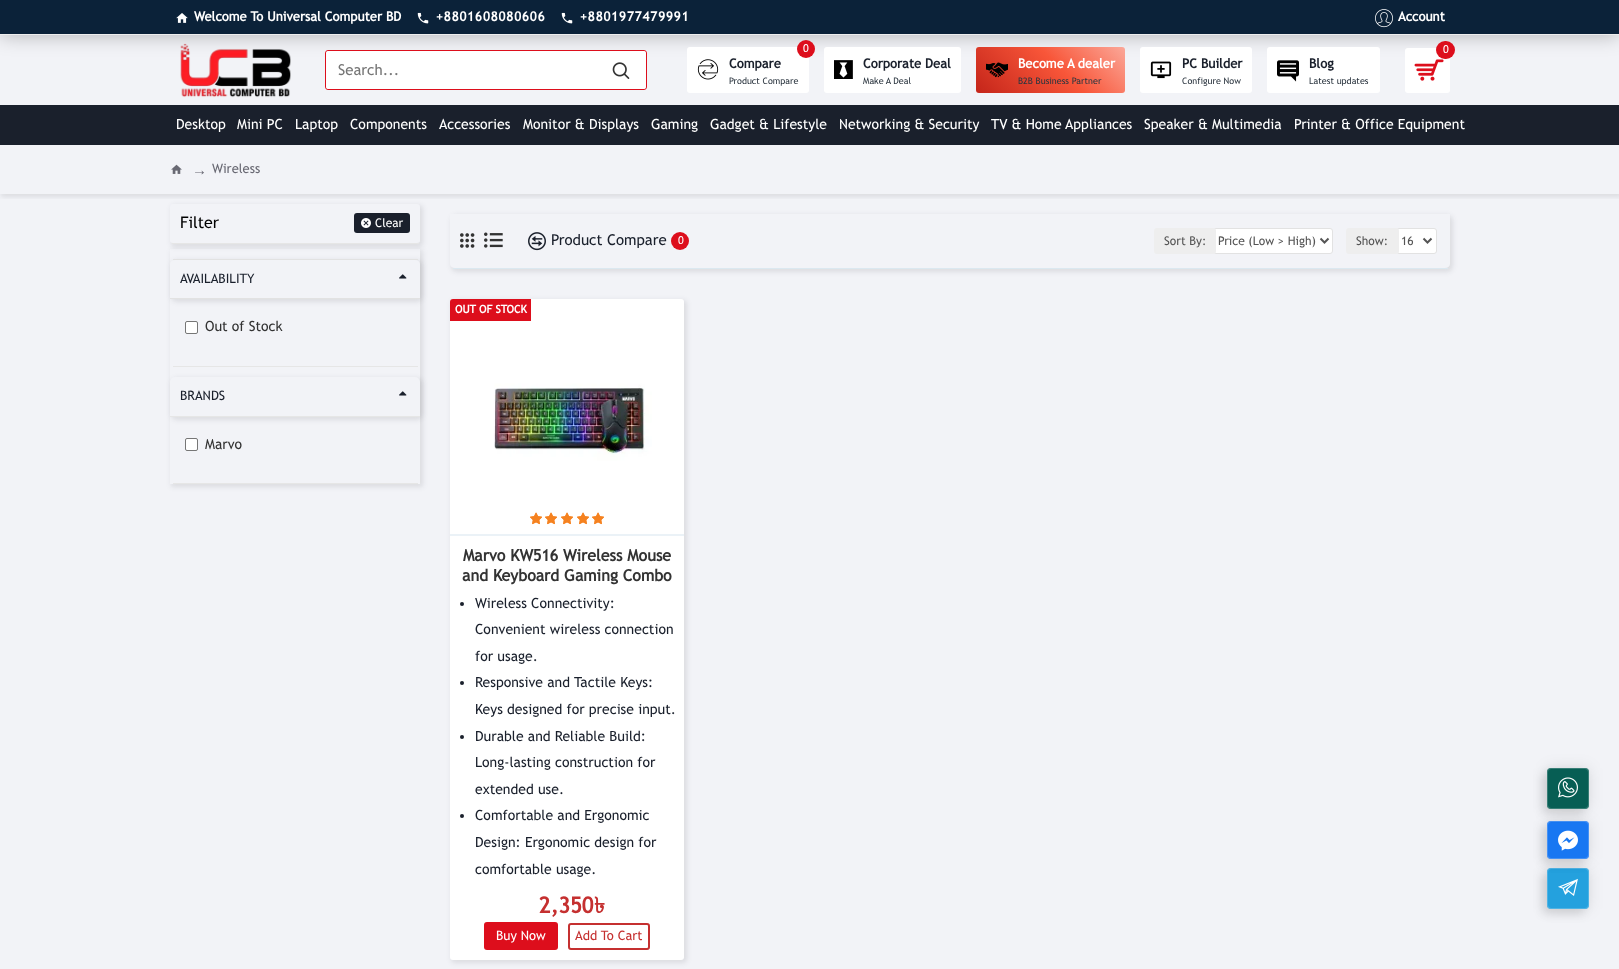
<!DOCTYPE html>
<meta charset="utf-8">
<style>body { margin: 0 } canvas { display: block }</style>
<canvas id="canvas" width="1619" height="969"></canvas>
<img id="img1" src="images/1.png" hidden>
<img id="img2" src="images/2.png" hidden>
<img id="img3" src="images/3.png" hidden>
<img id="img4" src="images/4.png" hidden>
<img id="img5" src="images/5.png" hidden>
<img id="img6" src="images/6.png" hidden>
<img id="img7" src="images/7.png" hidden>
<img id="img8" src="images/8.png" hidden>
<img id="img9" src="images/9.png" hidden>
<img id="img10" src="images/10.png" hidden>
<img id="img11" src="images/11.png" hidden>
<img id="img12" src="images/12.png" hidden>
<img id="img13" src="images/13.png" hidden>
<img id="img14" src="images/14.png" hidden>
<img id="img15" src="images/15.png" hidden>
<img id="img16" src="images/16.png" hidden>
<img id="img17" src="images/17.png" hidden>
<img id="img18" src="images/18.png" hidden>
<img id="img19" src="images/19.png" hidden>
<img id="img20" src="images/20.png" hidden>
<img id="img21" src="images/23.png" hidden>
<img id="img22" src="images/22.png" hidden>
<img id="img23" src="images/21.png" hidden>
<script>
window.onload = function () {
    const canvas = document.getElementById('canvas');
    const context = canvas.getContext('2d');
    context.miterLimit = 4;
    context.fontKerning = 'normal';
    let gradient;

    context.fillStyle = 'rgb(242, 243, 247)';
    context.fillRect(0, 0, 1619, 969);
    context.fillStyle = 'rgba(0, 0, 0, 0.28)';
    context.filter = 'blur(10px)';
    context.beginPath();
    context.rect(0, 0, 1619, 35);
    context.fill();
    context.filter = 'none';
    context.fillStyle = 'rgb(11, 34, 57)';
    context.fillRect(0, 0, 1619, 34);
    context.fillStyle = 'rgb(238, 238, 238)';
    context.fillRect(0, 34, 1619, 1);
    context.drawImage(document.getElementById('img1'), 176, 13, 12, 10);
    context.drawImage(document.getElementById('img2'), 417, 12, 12, 12);
    context.drawImage(document.getElementById('img2'), 561, 12, 12, 12);
    context.drawImage(document.getElementById('img3'), 1375, 9, 18, 19);
    context.drawImage(document.getElementById('img4'), 180, 43, 111, 55);
    context.beginPath();
    context.roundRect(325.5, 50.5, 321, 39, 2.5);
    context.strokeStyle = 'rgb(221, 14, 28)';
    context.stroke();
    context.fillStyle = 'rgb(255, 255, 255)';
    context.beginPath();
    context.roundRect(326, 51, 270, 38, [3, 0, 0, 3]);
    context.fill();
    context.beginPath();
    context.roundRect(596, 51, 50, 38, [0, 3, 3, 0]);
    context.fill();
    context.drawImage(document.getElementById('img5'), 612, 62, 18, 17);
    context.beginPath();
    context.roundRect(687, 47, 122, 46, 3);
    context.fill();
    context.fillStyle = 'rgb(221, 14, 28)';
    context.beginPath();
    context.arc(806, 49, 9, 0, 2 * Math.PI);
    context.fill();
    context.drawImage(document.getElementById('img6'), 697, 59, 22, 21);
    context.fillStyle = 'rgb(255, 255, 255)';
    context.beginPath();
    context.roundRect(824, 47, 137, 46, 3);
    context.fill();
    context.drawImage(document.getElementById('img7'), 834, 60, 19, 19);
    gradient = context.createLinearGradient(1096, 282, 1452, -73);
    gradient.addColorStop(0, 'rgb(164, 6, 6)');
    gradient.addColorStop(0.25, 'rgb(248, 86, 57)');
    gradient.addColorStop(0.5, 'rgb(255, 255, 255)');
    gradient.addColorStop(0.75, 'rgb(245, 56, 68)');
    gradient.addColorStop(1, 'rgb(0, 35, 126)');
    context.fillStyle = gradient;
    context.beginPath();
    context.roundRect(976, 47, 149, 46, 3);
    context.fill();
    context.drawImage(document.getElementById('img8'), 986, 62, 22, 16);
    context.fillStyle = 'rgb(255, 255, 255)';
    context.beginPath();
    context.roundRect(1140, 47, 112, 46, 3);
    context.fill();
    context.drawImage(document.getElementById('img9'), 1150, 61, 22, 18);
    context.beginPath();
    context.roundRect(1267, 47, 113, 46, 3);
    context.fill();
    context.drawImage(document.getElementById('img10'), 1277, 60, 22, 22);
    context.beginPath();
    context.roundRect(1405, 48, 45, 45, 3);
    context.fill();
    context.fillStyle = 'rgb(221, 14, 28)';
    context.beginPath();
    context.roundRect(1436, 41, 19, 18, 9);
    context.fill();
    context.drawImage(document.getElementById('img11'), 1414, 59, 30, 22);
    context.save();
    context.beginPath();
    context.rect(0, 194, 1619, 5);
    context.clip();
    context.fillStyle = 'rgba(26, 32, 44, 0.1)';
    context.filter = 'blur(2.5px)';
    context.beginPath();
    context.rect(1, 146, 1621, 51);
    context.fill();
    context.filter = 'none';
    context.restore();
    context.fillStyle = 'rgb(26, 32, 44)';
    context.fillRect(0, 105, 1619, 40);
    context.drawImage(document.getElementById('img12'), 171, 164, 11, 10);
    context.fillStyle = 'rgba(26, 32, 44, 0.1)';
    context.filter = 'blur(2.5px)';
    context.beginPath();
    context.roundRect(171, 205, 252, 42, 4);
    context.fill();
    context.filter = 'none';
    context.save();
    context.beginPath();
    context.moveTo(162, 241);
    context.lineTo(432, 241);
    context.lineTo(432, 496);
    context.lineTo(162, 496);
    context.closePath();
    context.moveTo(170, 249);
    context.lineTo(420, 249);
    context.lineTo(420, 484);
    context.lineTo(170, 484);
    context.closePath();
    context.clip('evenodd');
    context.filter = 'blur(2.5px)';
    context.beginPath();
    context.rect(171, 250, 252, 237);
    context.fill();
    context.filter = 'none';
    context.restore();
    context.fillStyle = 'rgb(242, 243, 247)';
    context.beginPath();
    context.moveTo(173, 204);
    context.lineTo(417, 204);
    context.bezierCurveTo(419, 204, 420, 205, 420, 207);
    context.lineTo(420, 241);
    context.bezierCurveTo(420, 242, 419, 243, 417, 243);
    context.lineTo(173, 243);
    context.bezierCurveTo(171, 243, 170, 242, 170, 241);
    context.lineTo(170, 207);
    context.bezierCurveTo(170, 205, 171, 204, 173, 204);
    context.closePath();
    context.fill();
    context.fillStyle = 'rgb(230, 230, 230)';
    context.fillRect(172, 243, 247, 1);
    context.fillStyle = 'rgb(26, 32, 44)';
    context.beginPath();
    context.roundRect(354, 213, 56, 20, 3);
    context.fill();
    context.drawImage(document.getElementById('img13'), 361, 218, 10, 10);
    context.fillStyle = 'rgba(26, 32, 44, 0.1)';
    context.filter = 'blur(2.5px)';
    context.beginPath();
    context.roundRect(171, 260, 252, 42, 6);
    context.fill();
    context.filter = 'none';
    context.fillStyle = 'rgb(242, 243, 247)';
    context.beginPath();
    context.moveTo(175, 260);
    context.lineTo(415, 260);
    context.bezierCurveTo(418, 260, 420, 262, 420, 264);
    context.lineTo(420, 298);
    context.lineTo(170, 298);
    context.lineTo(170, 264);
    context.bezierCurveTo(170, 262, 172, 260, 175, 260);
    context.closePath();
    context.fill();
    context.fillStyle = 'rgb(226, 226, 226)';
    context.fillRect(173, 259, 245, 1);
    context.fillRect(170, 298, 250, 1);
    context.drawImage(document.getElementById('img14'), 399, 274, 8, 5);
    context.fillStyle = 'rgb(230, 230, 230)';
    context.fillRect(173, 366, 245, 1);
    context.fillStyle = 'rgb(255, 255, 255)';
    context.beginPath();
    context.roundRect(185.5, 321.5, 12, 12, 1.5);
    context.fill();
    context.strokeStyle = 'rgb(118, 118, 118)';
    context.stroke();
    context.fillStyle = 'rgba(26, 32, 44, 0.1)';
    context.filter = 'blur(2.5px)';
    context.beginPath();
    context.roundRect(171, 378, 252, 42, 6);
    context.fill();
    context.filter = 'none';
    context.fillStyle = 'rgb(242, 243, 247)';
    context.beginPath();
    context.roundRect(170, 377, 250, 39, [5, 5, 0, 0]);
    context.fill();
    context.fillStyle = 'rgb(230, 230, 230)';
    context.fillRect(170, 416, 250, 1);
    context.drawImage(document.getElementById('img14'), 399, 391, 8, 5);
    context.fillRect(173, 483, 245, 1);
    context.fillStyle = 'rgb(255, 255, 255)';
    context.beginPath();
    context.roundRect(185.5, 438.5, 12, 12, 1.5);
    context.fill();
    context.stroke();
    context.fillStyle = 'rgba(26, 32, 44, 0.1)';
    context.filter = 'blur(2.5px)';
    context.beginPath();
    context.roundRect(451, 215, 1002, 57, 6);
    context.fill();
    context.filter = 'none';
    context.fillStyle = 'rgb(242, 243, 247)';
    context.beginPath();
    context.moveTo(450, 214);
    context.lineTo(1450, 214);
    context.lineTo(1450, 264);
    context.bezierCurveTo(1450, 266, 1448, 268, 1445, 268);
    context.lineTo(455, 268);
    context.bezierCurveTo(452, 268, 450, 266, 450, 264);
    context.closePath();
    context.fill();
    context.fillStyle = 'rgb(219, 232, 240)';
    context.fillRect(453, 268, 995, 1);
    context.drawImage(document.getElementById('img15'), 460, 233, 15, 15);
    context.drawImage(document.getElementById('img16'), 484, 232, 19, 16);
    context.drawImage(document.getElementById('img17'), 528, 232, 18, 19);
    context.fillStyle = 'rgb(221, 14, 28)';
    context.beginPath();
    context.arc(680, 241, 9, 0, 2 * Math.PI);
    context.fill();
    context.fillStyle = 'rgb(255, 255, 255)';
    context.beginPath();
    context.roundRect(1213.5, 228.5, 119, 25, 2.5);
    context.fill();
    context.strokeStyle = 'rgb(226, 226, 226)';
    context.stroke();
    context.fillStyle = 'rgb(238, 238, 238)';
    context.beginPath();
    context.roundRect(1154, 228, 62, 26, 3);
    context.fill();
    context.beginPath();
    context.moveTo(1320.5, 238.5);
    context.lineTo(1324.5, 242.5);
    context.lineTo(1328.5, 238.5);
    context.strokeStyle = 'rgb(85, 85, 85)';
    context.lineWidth = 2;
    context.stroke();
    context.fillStyle = 'rgb(255, 255, 255)';
    context.beginPath();
    context.roundRect(1396.5, 228.5, 40, 25, 2.5);
    context.fill();
    context.strokeStyle = 'rgb(226, 226, 226)';
    context.lineWidth = 1;
    context.stroke();
    context.fillStyle = 'rgb(238, 238, 238)';
    context.beginPath();
    context.roundRect(1346, 228, 53, 26, 3);
    context.fill();
    context.beginPath();
    context.moveTo(1423.5, 238.5);
    context.lineTo(1427.5, 242.5);
    context.lineTo(1431.5, 238.5);
    context.strokeStyle = 'rgb(85, 85, 85)';
    context.lineWidth = 2;
    context.stroke();
    context.fillStyle = 'rgba(26, 32, 44, 0.1)';
    context.filter = 'blur(2.5px)';
    context.beginPath();
    context.roundRect(451, 300, 236, 663, 4);
    context.fill();
    context.filter = 'none';
    context.fillStyle = 'rgb(255, 255, 255)';
    context.beginPath();
    context.roundRect(450, 299, 234, 661, 3);
    context.fill();
    context.drawImage(document.getElementById('img18'), 460, 309, 214, 215);
    context.fillStyle = 'rgb(221, 14, 28)';
    context.beginPath();
    context.roundRect(450, 299, 81, 22, [3, 0, 0, 0]);
    context.fill();
    context.fillStyle = 'rgb(235, 242, 247)';
    context.fillRect(450, 534, 234, 2);
    context.drawImage(document.getElementById('img19'), 530, 512, 12, 13);
    context.drawImage(document.getElementById('img20'), 530, 512, 12, 13);
    context.drawImage(document.getElementById('img19'), 545, 512, 12, 13);
    context.drawImage(document.getElementById('img20'), 545, 512, 12, 13);
    context.drawImage(document.getElementById('img19'), 561, 512, 12, 13);
    context.drawImage(document.getElementById('img20'), 561, 512, 12, 13);
    context.drawImage(document.getElementById('img19'), 577, 512, 12, 13);
    context.drawImage(document.getElementById('img20'), 577, 512, 12, 13);
    context.drawImage(document.getElementById('img19'), 592, 512, 12, 13);
    context.drawImage(document.getElementById('img20'), 592, 512, 12, 13);
    context.fillStyle = 'rgb(26, 32, 44)';
    context.beginPath();
    context.arc(462, 604, 2, 0, 2 * Math.PI);
    context.fill();
    context.beginPath();
    context.arc(462, 683, 2, 0, 2 * Math.PI);
    context.fill();
    context.beginPath();
    context.arc(462, 737, 2, 0, 2 * Math.PI);
    context.fill();
    context.beginPath();
    context.arc(462, 816, 2, 0, 2 * Math.PI);
    context.fill();
    context.fillStyle = 'rgb(221, 14, 28)';
    context.beginPath();
    context.roundRect(484, 922, 74, 28, 3);
    context.fill();
    context.beginPath();
    context.roundRect(569, 924, 80, 25, 2);
    context.strokeStyle = 'rgb(197, 48, 48)';
    context.stroke();
    context.fillStyle = 'rgba(0, 0, 0, 0.1)';
    context.filter = 'blur(5px)';
    context.beginPath();
    context.roundRect(1542, 873, 42, 41, 4);
    context.fill();
    context.filter = 'none';
    context.filter = 'blur(7.5px)';
    context.beginPath();
    context.roundRect(1547, 868, 42, 41, 4);
    context.fill();
    context.filter = 'none';
    context.fillStyle = 'rgb(36, 161, 222)';
    context.beginPath();
    context.roundRect(1547, 868, 42, 41, 4);
    context.fill();
    context.beginPath();
    context.roundRect(1547.5, 868.5, 41, 40, 3.5);
    context.strokeStyle = 'rgba(255, 255, 255, 0.2)';
    context.lineWidth = 1;
    context.stroke();
    context.drawImage(document.getElementById('img21'), 1558, 878, 20, 18);
    context.fillStyle = 'rgba(0, 0, 0, 0.1)';
    context.filter = 'blur(5px)';
    context.beginPath();
    context.roundRect(1542, 826, 42, 38, 4);
    context.fill();
    context.filter = 'none';
    context.filter = 'blur(7.5px)';
    context.beginPath();
    context.roundRect(1547, 821, 42, 38, 4);
    context.fill();
    context.filter = 'none';
    context.fillStyle = 'rgb(24, 119, 242)';
    context.beginPath();
    context.roundRect(1547, 821, 42, 38, 4);
    context.fill();
    context.beginPath();
    context.roundRect(1547.5, 821.5, 41, 37, 3.5);
    context.stroke();
    context.fillStyle = 'rgba(0, 0, 0, 0.1)';
    context.filter = 'blur(5px)';
    context.beginPath();
    context.roundRect(1542, 773, 42, 41, 4);
    context.fill();
    context.filter = 'none';
    context.drawImage(document.getElementById('img22'), 1558, 830, 20, 21);
    context.filter = 'blur(7.5px)';
    context.beginPath();
    context.roundRect(1547, 768, 42, 41, 4);
    context.fill();
    context.filter = 'none';
    context.fillStyle = 'rgb(7, 94, 84)';
    context.beginPath();
    context.roundRect(1547, 768, 42, 41, 4);
    context.fill();
    context.beginPath();
    context.roundRect(1547.5, 768.5, 41, 40, 3.5);
    context.stroke();
    context.drawImage(document.getElementById('img23'), 1558, 777, 20, 21);
    context.font = 'bold 13px Trebuchet MS';
    context.fillStyle = 'rgb(255, 255, 255)';
    context.fillText('Welcome To Universal Computer BD', 194, 21);
    context.letterSpacing = '1px';
    context.fillText('+8801608080606', 436, 21);
    context.fillText('+8801977479991', 580, 21);
    context.letterSpacing = '0px';
    context.fillText('Account', 1398, 21);
    context.font = '15px Trebuchet MS';
    context.fillStyle = 'rgb(117, 117, 117)';
    context.fillText('Search...', 338, 75);
    context.font = '11px Trebuchet MS';
    context.fillStyle = 'rgb(255, 255, 255)';
    context.fillText('0', 803, 52);
    context.font = 'bold 13px Trebuchet MS';
    context.fillStyle = 'rgb(26, 32, 44)';
    context.fillText('Compare', 729, 68);
    context.font = '9px Trebuchet MS';
    context.fillStyle = 'rgb(44, 54, 64)';
    context.fillText('Product Compare', 729, 84);
    context.font = 'bold 13px Trebuchet MS';
    context.fillStyle = 'rgb(26, 32, 44)';
    context.fillText('Corporate Deal', 863, 68);
    context.font = '9px Trebuchet MS';
    context.fillStyle = 'rgb(44, 54, 64)';
    context.fillText('Make A Deal', 863, 84);
    context.font = 'bold 13px Trebuchet MS';
    context.fillStyle = 'rgb(255, 255, 255)';
    context.fillText('Become A dealer', 1018, 68);
    context.font = '9px Trebuchet MS';
    context.fillStyle = 'rgb(44, 54, 64)';
    context.fillText('B2B Business Partner', 1018, 84);
    context.font = 'bold 13px Trebuchet MS';
    context.fillStyle = 'rgb(26, 32, 44)';
    context.fillText('PC Builder', 1182, 68);
    context.font = '9px Trebuchet MS';
    context.fillStyle = 'rgb(44, 54, 64)';
    context.fillText('Configure Now', 1182, 84);
    context.font = 'bold 13px Trebuchet MS';
    context.fillStyle = 'rgb(26, 32, 44)';
    context.fillText('Blog', 1309, 68);
    context.font = '9px Trebuchet MS';
    context.fillStyle = 'rgb(44, 54, 64)';
    context.fillText('Latest updates', 1309, 84);
    context.font = '11px Trebuchet MS';
    context.fillStyle = 'rgb(255, 255, 255)';
    context.fillText('0', 1443, 53);
    context.font = '14px Trebuchet MS';
    context.fillText('Desktop', 176, 129);
    context.fillText('Mini PC', 237, 129);
    context.fillText('Laptop', 295, 129);
    context.fillText('Components', 350, 129);
    context.fillText('Accessories', 439, 129);
    context.fillText('Monitor & Displays', 523, 129);
    context.fillText('Gaming', 651, 129);
    context.fillText('Gadget & Lifestyle', 710, 129);
    context.fillText('Networking & Security', 839, 129);
    context.fillText('TV & Home Appliances', 991, 129);
    context.fillText('Speaker & Multimedia', 1144, 129);
    context.fillText('Printer & Office Equipment', 1294, 129);
    context.font = '15px Liberation Serif';
    context.fillStyle = 'rgb(105, 105, 115)';
    context.fillText('→', 192, 175);
    context.font = '13px Trebuchet MS';
    context.fillText('Wireless', 212, 173);
    context.font = '16px Trebuchet MS';
    context.fillStyle = 'rgb(0, 0, 0)';
    context.fillText('Filter', 180, 228);
    context.font = '12px Trebuchet MS';
    context.fillStyle = 'rgb(255, 255, 255)';
    context.fillText('Clear', 375, 227);
    context.font = '13px Trebuchet MS';
    context.fillStyle = 'rgb(26, 32, 44)';
    context.fillText('AVAILABILITY', 180, 283);
    context.font = '14px Trebuchet MS';
    context.fillStyle = 'rgb(51, 51, 51)';
    context.fillText('Out of Stock', 205, 331);
    context.font = '13px Trebuchet MS';
    context.fillStyle = 'rgb(26, 32, 44)';
    context.fillText('BRANDS', 180, 400);
    context.font = '14px Trebuchet MS';
    context.fillStyle = 'rgb(51, 51, 51)';
    context.fillText('Marvo', 205, 449);
    context.font = '15px Trebuchet MS';
    context.fillStyle = 'rgb(26, 32, 44)';
    context.fillText('Product Compare', 551, 245);
    context.font = '11px Trebuchet MS';
    context.fillStyle = 'rgb(255, 255, 255)';
    context.fillText('0', 678, 244);
    context.font = '12px Trebuchet MS';
    context.fillStyle = 'rgb(85, 85, 85)';
    context.fillText('Sort By:', 1164, 245);
    context.fillText('Price (Low > High)', 1218, 245);
    context.fillText('Show:', 1356, 245);
    context.fillText('16', 1401, 245);
    context.font = 'bold 11px Trebuchet MS';
    context.fillStyle = 'rgb(255, 255, 255)';
    context.fillText('OUT OF STOCK', 455, 313);
    context.font = 'bold 16px Trebuchet MS';
    context.fillStyle = 'rgb(51, 51, 51)';
    context.fillText('Marvo KW516 Wireless Mouse', 463, 561);
    context.fillText('and Keyboard Gaming Combo', 462, 581);
    context.font = '14px Trebuchet MS';
    context.fillStyle = 'rgb(26, 32, 44)';
    context.fillText('Wireless Connectivity:', 475, 608);
    context.fillText('Convenient wireless connection', 475, 634);
    context.fillText('for usage.', 475, 661);
    context.fillText('Responsive and Tactile Keys:', 475, 687);
    context.fillText('Keys designed for precise input.', 475, 714);
    context.fillText('Durable and Reliable Build:', 475, 741);
    context.fillText('Long-lasting construction for', 475, 767);
    context.fillText('extended use.', 475, 794);
    context.fillText('Comfortable and Ergonomic', 475, 820);
    context.fillText('Design: Ergonomic design for', 475, 847);
    context.fillText('comfortable usage.', 475, 874);
    context.font = 'bold 22px Trebuchet MS';
    context.fillStyle = 'rgb(197, 48, 48)';
    context.fillText('2,350', 539, 913);
    context.font = 'bold 22px Lohit Bengali';
    context.fillText('৳', 594, 913);
    context.font = '13px Trebuchet MS';
    context.fillStyle = 'rgb(255, 255, 255)';
    context.fillText('Buy Now', 496, 940);
    context.fillStyle = 'rgb(197, 48, 48)';
    context.fillText('Add To Cart', 575, 940);
};
</script>
